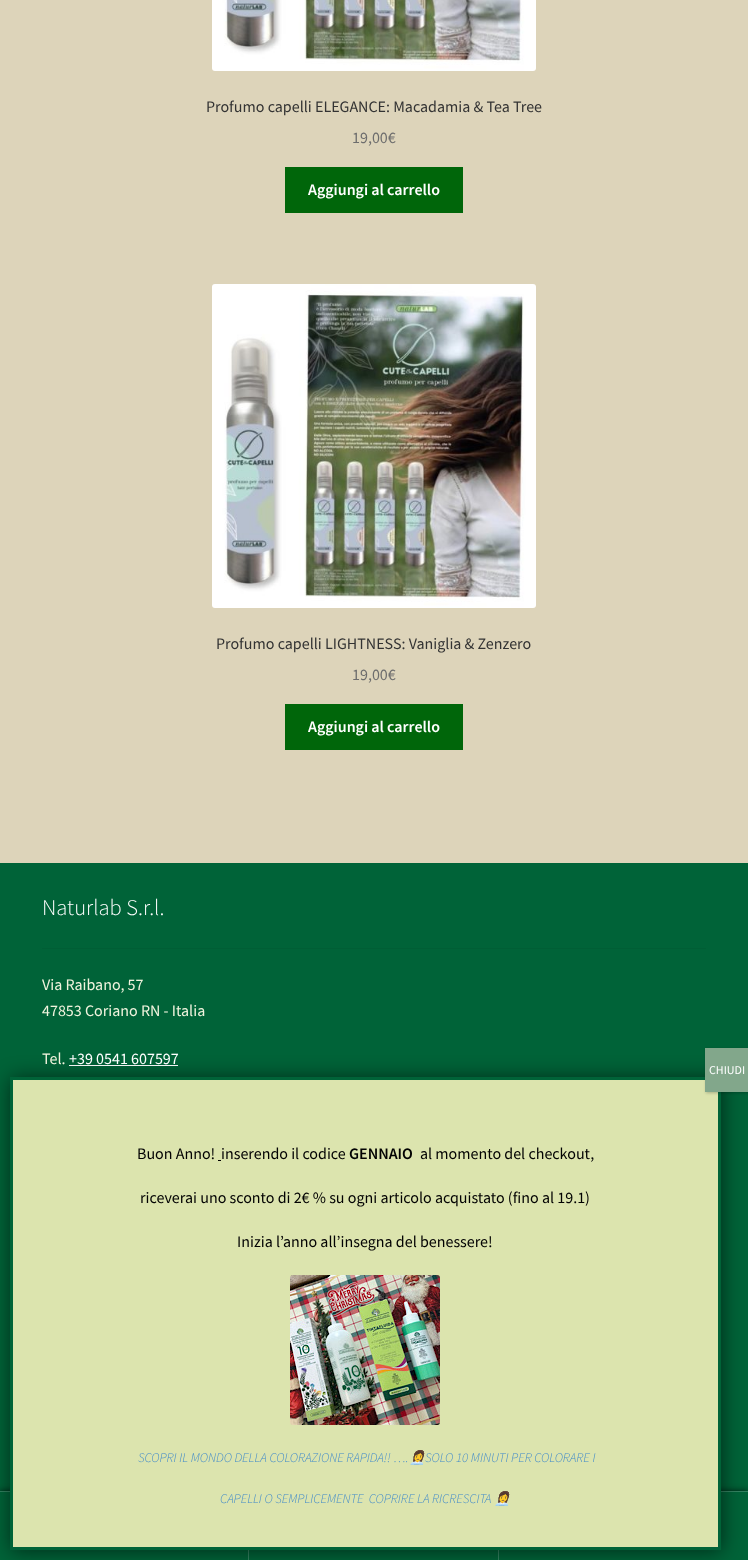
<!DOCTYPE html>
<meta charset="utf-8">
<style>body { margin: 0 } canvas { display: block }</style>
<canvas id="canvas" width="748" height="1560"></canvas>
<img id="img1" src="images/1.png" hidden>
<img id="img2" src="images/2.png" hidden>
<img id="img3" src="images/3.png" hidden>
<script>
window.onload = function () {
    const canvas = document.getElementById('canvas');
    const context = canvas.getContext('2d');
    context.miterLimit = 4;
    context.fontKerning = 'normal';

    context.fillStyle = 'rgb(221, 212, 186)';
    context.fillRect(0, 0, 748, 1560);
    context.drawImage(document.getElementById('img1'), 212, 0, 324, 71);
    context.fillStyle = 'rgb(0, 102, 10)';
    context.fillRect(285, 167, 178, 46);
    context.drawImage(document.getElementById('img2'), 212, 284, 324, 324);
    context.fillRect(285, 704, 178, 46);
    context.fillStyle = 'rgb(0, 99, 56)';
    context.fillRect(0, 863, 748, 628);
    context.fillStyle = 'rgb(0, 94, 53)';
    context.fillRect(42, 948, 664, 1);
    context.fillStyle = 'rgb(255, 255, 255)';
    context.fillRect(69, 1065, 109, 1);
    context.fillStyle = 'rgba(0, 0, 0, 0.7)';
    context.filter = 'blur(3px)';
    context.beginPath();
    context.rect(0, 1491, 748, 69);
    context.fill();
    context.filter = 'none';
    context.fillStyle = 'rgb(51, 130, 96)';
    context.fillRect(0, 1491, 748, 1);
    context.fillStyle = 'rgb(0, 99, 56)';
    context.fillRect(0, 1492, 248, 68);
    context.fillStyle = 'rgb(51, 130, 96)';
    context.fillRect(248, 1550, 1, 10);
    context.fillStyle = 'rgb(0, 99, 56)';
    context.fillRect(249, 1550, 249, 10);
    context.fillStyle = 'rgb(51, 130, 96)';
    context.fillRect(498, 1550, 1, 10);
    context.fillStyle = 'rgb(0, 99, 56)';
    context.fillRect(499, 1492, 249, 68);
    context.fillStyle = 'rgba(2, 2, 2, 0.57)';
    context.filter = 'blur(10px)';
    context.beginPath();
    context.roundRect(11, 1078, 711, 473, 1);
    context.fill();
    context.filter = 'none';
    context.fillStyle = 'rgb(220, 228, 174)';
    context.fillRect(13, 1080, 705, 467);
    context.beginPath();
    context.moveTo(11.5, 1078.5);
    context.lineTo(719.5, 1078.5);
    context.lineTo(719.5, 1548.5);
    context.lineTo(11.5, 1548.5);
    context.closePath();
    context.strokeStyle = 'rgb(0, 99, 56)';
    context.lineWidth = 3;
    context.stroke();
    context.fillStyle = 'rgba(2, 2, 2, 0.23)';
    context.filter = 'blur(1.5px)';
    context.beginPath();
    context.rect(706, 1049, 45, 44);
    context.fill();
    context.filter = 'none';
    context.fillStyle = 'rgb(130, 167, 139)';
    context.fillRect(705, 1048, 43, 44);
    context.fillStyle = 'rgb(2, 2, 2)';
    context.fillRect(218, 1160, 3, 1);
    context.drawImage(document.getElementById('img3'), 290, 1275, 150, 150);
    context.font = '16px Source Sans Pro';
    context.fillStyle = 'rgb(51, 51, 51)';
    context.fillText('Profumo capelli ELEGANCE: Macadamia & Tea Tree', 206, 112);
    context.fillStyle = 'rgb(109, 109, 109)';
    context.fillText('19,00€', 352, 143);
    context.font = '600 16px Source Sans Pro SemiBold';
    context.fillStyle = 'rgb(255, 255, 255)';
    context.fillText('Aggiungi al carrello', 308, 195);
    context.font = '16px Source Sans Pro';
    context.fillStyle = 'rgb(51, 51, 51)';
    context.fillText('Profumo capelli LIGHTNESS: Vaniglia & Zenzero', 216, 649);
    context.fillStyle = 'rgb(109, 109, 109)';
    context.fillText('19,00€', 352, 680);
    context.font = '600 16px Source Sans Pro SemiBold';
    context.fillStyle = 'rgb(255, 255, 255)';
    context.fillText('Aggiungi al carrello', 308, 732);
    context.font = '300 22.5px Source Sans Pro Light';
    context.fillText('Naturlab S.r.l.', 42, 915);
    context.font = '16px Source Sans Pro';
    context.fillStyle = 'rgb(241, 244, 222)';
    context.fillText('Via Raibano, 57', 42, 990);
    context.fillText('47853 Coriano RN - Italia', 42, 1016);
    context.fillText('Tel.', 42, 1064);
    context.fillStyle = 'rgb(255, 255, 255)';
    context.fillText('+39 0541 607597', 69, 1064);
    context.font = '12px Source Sans Pro';
    context.fillText('CHIUDI', 709, 1074);
    context.font = '16px Source Sans Pro';
    context.fillStyle = 'rgb(2, 2, 2)';
    context.fillText('Buon Anno!', 137, 1159);
    context.fillText('inserendo il codice', 221, 1159);
    context.font = '600 16px Source Sans Pro SemiBold';
    context.fillText('GENNAIO', 349, 1159);
    context.font = '16px Source Sans Pro';
    context.fillText('al momento del checkout,', 420, 1159);
    context.fillText('riceverai uno sconto di 2€ % su ogni articolo acquistato (fino al 19.1)', 140, 1203);
    context.fillText('Inizia l’anno all’insegna del benessere!', 237, 1247);
    context.font = 'italic 300 13.25px Source Sans Pro Light';
    context.fillStyle = 'rgb(66, 139, 202)';
    context.fillText('SCOPRI IL MONDO DELLA COLORAZIONE RAPIDA!! ….', 138, 1462);
    context.font = 'italic 13.25px Noto Color Emoji';
    context.fillText('👩‍💼', 409, 1462);
    context.font = 'italic 300 13.25px Source Sans Pro Light';
    context.fillText('SOLO 10 MINUTI PER COLORARE I', 425, 1462);
    context.fillText('CAPELLI O SEMPLICEMENTE  COPRIRE LA RICRESCITA', 220, 1503);
    context.font = 'italic 13.25px Noto Color Emoji';
    context.fillText('👩‍💼', 494, 1503);
};
</script>
